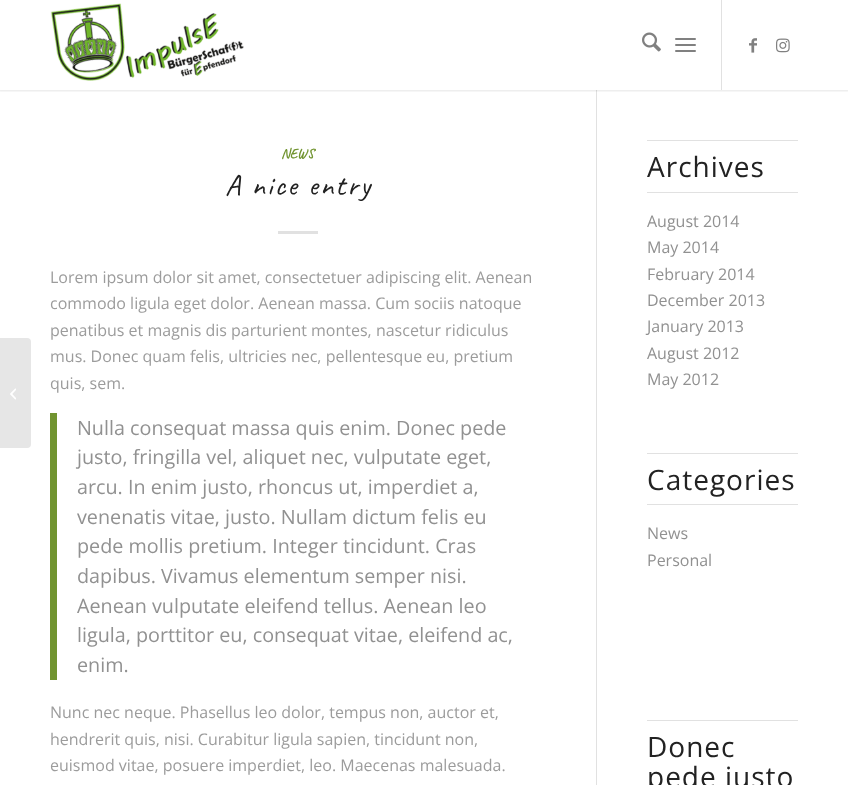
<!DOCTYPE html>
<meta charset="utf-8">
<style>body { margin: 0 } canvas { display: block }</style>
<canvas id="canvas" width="848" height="785"></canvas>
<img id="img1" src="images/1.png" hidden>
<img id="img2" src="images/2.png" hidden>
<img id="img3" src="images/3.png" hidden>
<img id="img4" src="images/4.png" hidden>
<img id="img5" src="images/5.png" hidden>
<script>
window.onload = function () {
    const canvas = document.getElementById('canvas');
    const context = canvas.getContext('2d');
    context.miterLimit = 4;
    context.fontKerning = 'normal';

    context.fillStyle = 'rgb(255, 255, 255)';
    context.fillRect(0, 0, 848, 785);
    context.fillStyle = 'rgb(230, 230, 230)';
    context.beginPath();
    context.roundRect(0, 338, 31, 110, [0, 4, 4, 0]);
    context.fill();
    context.drawImage(document.getElementById('img1'), 10, 388, 6, 12);
    context.fillStyle = 'rgb(225, 225, 225)';
    context.fillRect(596, 90, 1, 695);
    context.save();
    context.beginPath();
    context.rect(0, 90, 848, 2);
    context.clip();
    context.fillStyle = 'rgba(0, 0, 0, 0.1)';
    context.filter = 'blur(1px)';
    context.beginPath();
    context.rect(-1, -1, 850, 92);
    context.fill();
    context.filter = 'none';
    context.restore();
    context.drawImage(document.getElementById('img2'), 50, 3, 194, 78);
    context.fillRect(721, 0, 1, 90);
    context.drawImage(document.getElementById('img3'), 642, 32, 19, 20);
    context.fillStyle = 'rgb(128, 128, 128)';
    context.beginPath();
    context.roundRect(675, 44, 21, 2, 1);
    context.fill();
    context.beginPath();
    context.roundRect(675, 38, 21, 2, 1);
    context.fill();
    context.beginPath();
    context.roundRect(675, 50, 21, 2, 1);
    context.fill();
    context.drawImage(document.getElementById('img4'), 749, 38, 8, 15);
    context.drawImage(document.getElementById('img5'), 776, 38, 14, 15);
    context.fillStyle = 'rgb(225, 225, 225)';
    context.fillRect(278, 231, 40, 3);
    context.fillStyle = 'rgb(113, 148, 48)';
    context.fillRect(50, 413, 7, 267);
    context.fillStyle = 'rgb(225, 225, 225)';
    context.fillRect(647, 140, 151, 1);
    context.fillRect(647, 192, 151, 1);
    context.fillRect(647, 453, 151, 1);
    context.fillRect(647, 504, 151, 1);
    context.fillRect(647, 720, 151, 1);
    context.font = 'bold 14px Caveat';
    context.fillStyle = 'rgb(113, 148, 48)';
    context.fillText('NEWS', 281, 158);
    context.letterSpacing = '2px';
    context.font = '30px Caveat';
    context.fillStyle = 'rgb(34, 34, 34)';
    context.fillText('A nice entry', 225, 195);
    context.letterSpacing = '0px';
    context.font = '16px Open Sans';
    context.fillStyle = 'rgb(156, 156, 156)';
    context.fillText('Lorem ipsum dolor sit amet, consectetuer adipiscing elit. Aenean', 50, 283);
    context.fillText('commodo ligula eget dolor. Aenean massa. Cum sociis natoque', 50, 309);
    context.fillText('penatibus et magnis dis parturient montes, nascetur ridiculus', 50, 336);
    context.fillText('mus. Donec quam felis, ultricies nec, pellentesque eu, pretium', 50, 362);
    context.fillText('quis, sem.', 50, 389);
    context.font = '19.75px Open Sans';
    context.fillStyle = 'rgb(145, 145, 145)';
    context.fillText('Nulla consequat massa quis enim. Donec pede', 77, 435);
    context.fillText('justo, fringilla vel, aliquet nec, vulputate eget,', 77, 464);
    context.fillText('arcu. In enim justo, rhoncus ut, imperdiet a,', 77, 494);
    context.fillText('venenatis vitae, justo. Nullam dictum felis eu', 77, 524);
    context.fillText('pede mollis pretium. Integer tincidunt. Cras', 77, 553);
    context.fillText('dapibus. Vivamus elementum semper nisi.', 77, 583);
    context.fillText('Aenean vulputate eleifend tellus. Aenean leo', 77, 613);
    context.fillText('ligula, porttitor eu, consequat vitae, eleifend ac,', 77, 642);
    context.fillText('enim.', 77, 672);
    context.font = '16px Open Sans';
    context.fillStyle = 'rgb(156, 156, 156)';
    context.fillText('Nunc nec neque. Phasellus leo dolor, tempus non, auctor et,', 50, 718);
    context.fillText('hendrerit quis, nisi. Curabitur ligula sapien, tincidunt non,', 50, 745);
    context.fillText('euismod vitae, posuere imperdiet, leo. Maecenas malesuada.', 50, 771);
    context.letterSpacing = '1px';
    context.font = '28px Open Sans';
    context.fillStyle = 'rgb(34, 34, 34)';
    context.fillText('Archives', 647, 177);
    context.letterSpacing = '0px';
    context.font = '16px Open Sans';
    context.fillStyle = 'rgb(145, 145, 145)';
    context.fillText('August 2014', 647, 227);
    context.fillText('May 2014', 647, 253);
    context.fillText('February 2014', 647, 280);
    context.fillText('December 2013', 647, 306);
    context.fillText('January 2013', 647, 332);
    context.fillText('August 2012', 647, 359);
    context.fillText('May 2012', 647, 385);
    context.letterSpacing = '1px';
    context.font = '28px Open Sans';
    context.fillStyle = 'rgb(34, 34, 34)';
    context.fillText('Categories', 647, 490);
    context.letterSpacing = '0px';
    context.font = '16px Open Sans';
    context.fillStyle = 'rgb(145, 145, 145)';
    context.fillText('News', 647, 539);
    context.fillText('Personal', 647, 566);
    context.letterSpacing = '1px';
    context.font = '28px Open Sans';
    context.fillStyle = 'rgb(34, 34, 34)';
    context.fillText('Donec', 647, 757);
    context.fillText('pede justo', 647, 787);
};
</script>
